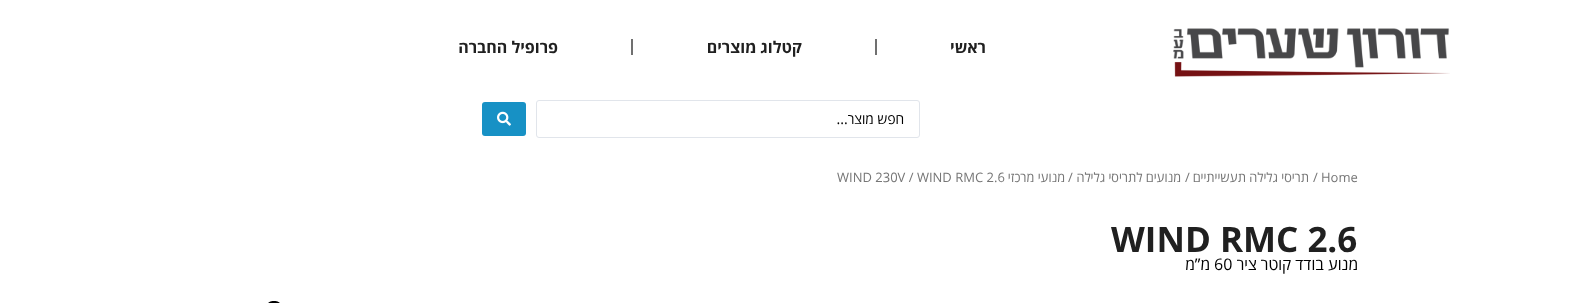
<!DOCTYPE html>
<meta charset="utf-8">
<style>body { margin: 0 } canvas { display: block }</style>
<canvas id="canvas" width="1595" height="303"></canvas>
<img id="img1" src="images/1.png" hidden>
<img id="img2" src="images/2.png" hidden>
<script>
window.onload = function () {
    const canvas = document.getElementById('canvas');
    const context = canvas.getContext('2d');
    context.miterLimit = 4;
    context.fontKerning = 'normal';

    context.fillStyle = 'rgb(255, 255, 255)';
    context.fillRect(0, 0, 1595, 303);
    context.drawImage(document.getElementById('img1'), 1173, 28, 277, 49);
    context.fillStyle = 'rgb(112, 112, 112)';
    context.fillRect(875, 39, 2, 16);
    context.fillRect(631, 39, 2, 16);
    context.beginPath();
    context.roundRect(536.5, 100.5, 383, 37, 2.5);
    context.strokeStyle = 'rgb(225, 229, 235)';
    context.stroke();
    context.fillStyle = 'rgb(23, 145, 197)';
    context.beginPath();
    context.roundRect(482, 102, 44, 34, 3);
    context.fill();
    context.drawImage(document.getElementById('img2'), 497, 111, 14, 15);
    context.beginPath();
    context.roundRect(268, 302, 12, 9, 6);
    context.strokeStyle = 'rgb(0, 0, 0)';
    context.lineWidth = 2;
    context.stroke();
    context.direction = 'rtl';
    context.font = 'bold 16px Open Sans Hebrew';
    context.fillStyle = 'rgb(32, 32, 32)';
    context.fillText('ראשי', 986, 53);
    context.fillText('קטלוג מוצרים', 802, 53);
    context.fillText('פרופיל החברה', 558, 53);
    context.font = '14px Open Sans Hebrew';
    context.fillStyle = 'rgb(0, 0, 0)';
    context.fillText('חפש מוצר...', 904, 124);
    context.direction = 'ltr';
    context.font = '13px Open Sans Hebrew';
    context.fillStyle = 'rgb(118, 118, 118)';
    context.fillText('Home', 1321, 182);
    context.fillText('/', 1313, 182);
    context.direction = 'rtl';
    context.fillText('תריסי גלילה תעשייתיים', 1309, 182);
    context.direction = 'ltr';
    context.fillText('/', 1185, 182);
    context.direction = 'rtl';
    context.fillText('מנועים לתריסי גלילה', 1181, 182);
    context.direction = 'ltr';
    context.fillText('/', 1068, 182);
    context.direction = 'rtl';
    context.fillText('מנועי מרכזי', 1065, 182);
    context.direction = 'ltr';
    context.fillText('WIND 230V / WIND RMC 2.6', 837, 182);
    context.font = 'bold 35px Open Sans Hebrew';
    context.fillStyle = 'rgb(32, 32, 32)';
    context.fillText('WIND RMC 2.6', 1111, 252);
    context.direction = 'rtl';
    context.font = '16px Open Sans Hebrew';
    context.fillStyle = 'rgb(0, 0, 0)';
    context.fillText('מנוע בודד קוטר ציר', 1358, 270);
    context.direction = 'ltr';
    context.fillText('60', 1214, 270);
    context.direction = 'rtl';
    context.fillText('מ”מ', 1210, 270);
};
</script>
